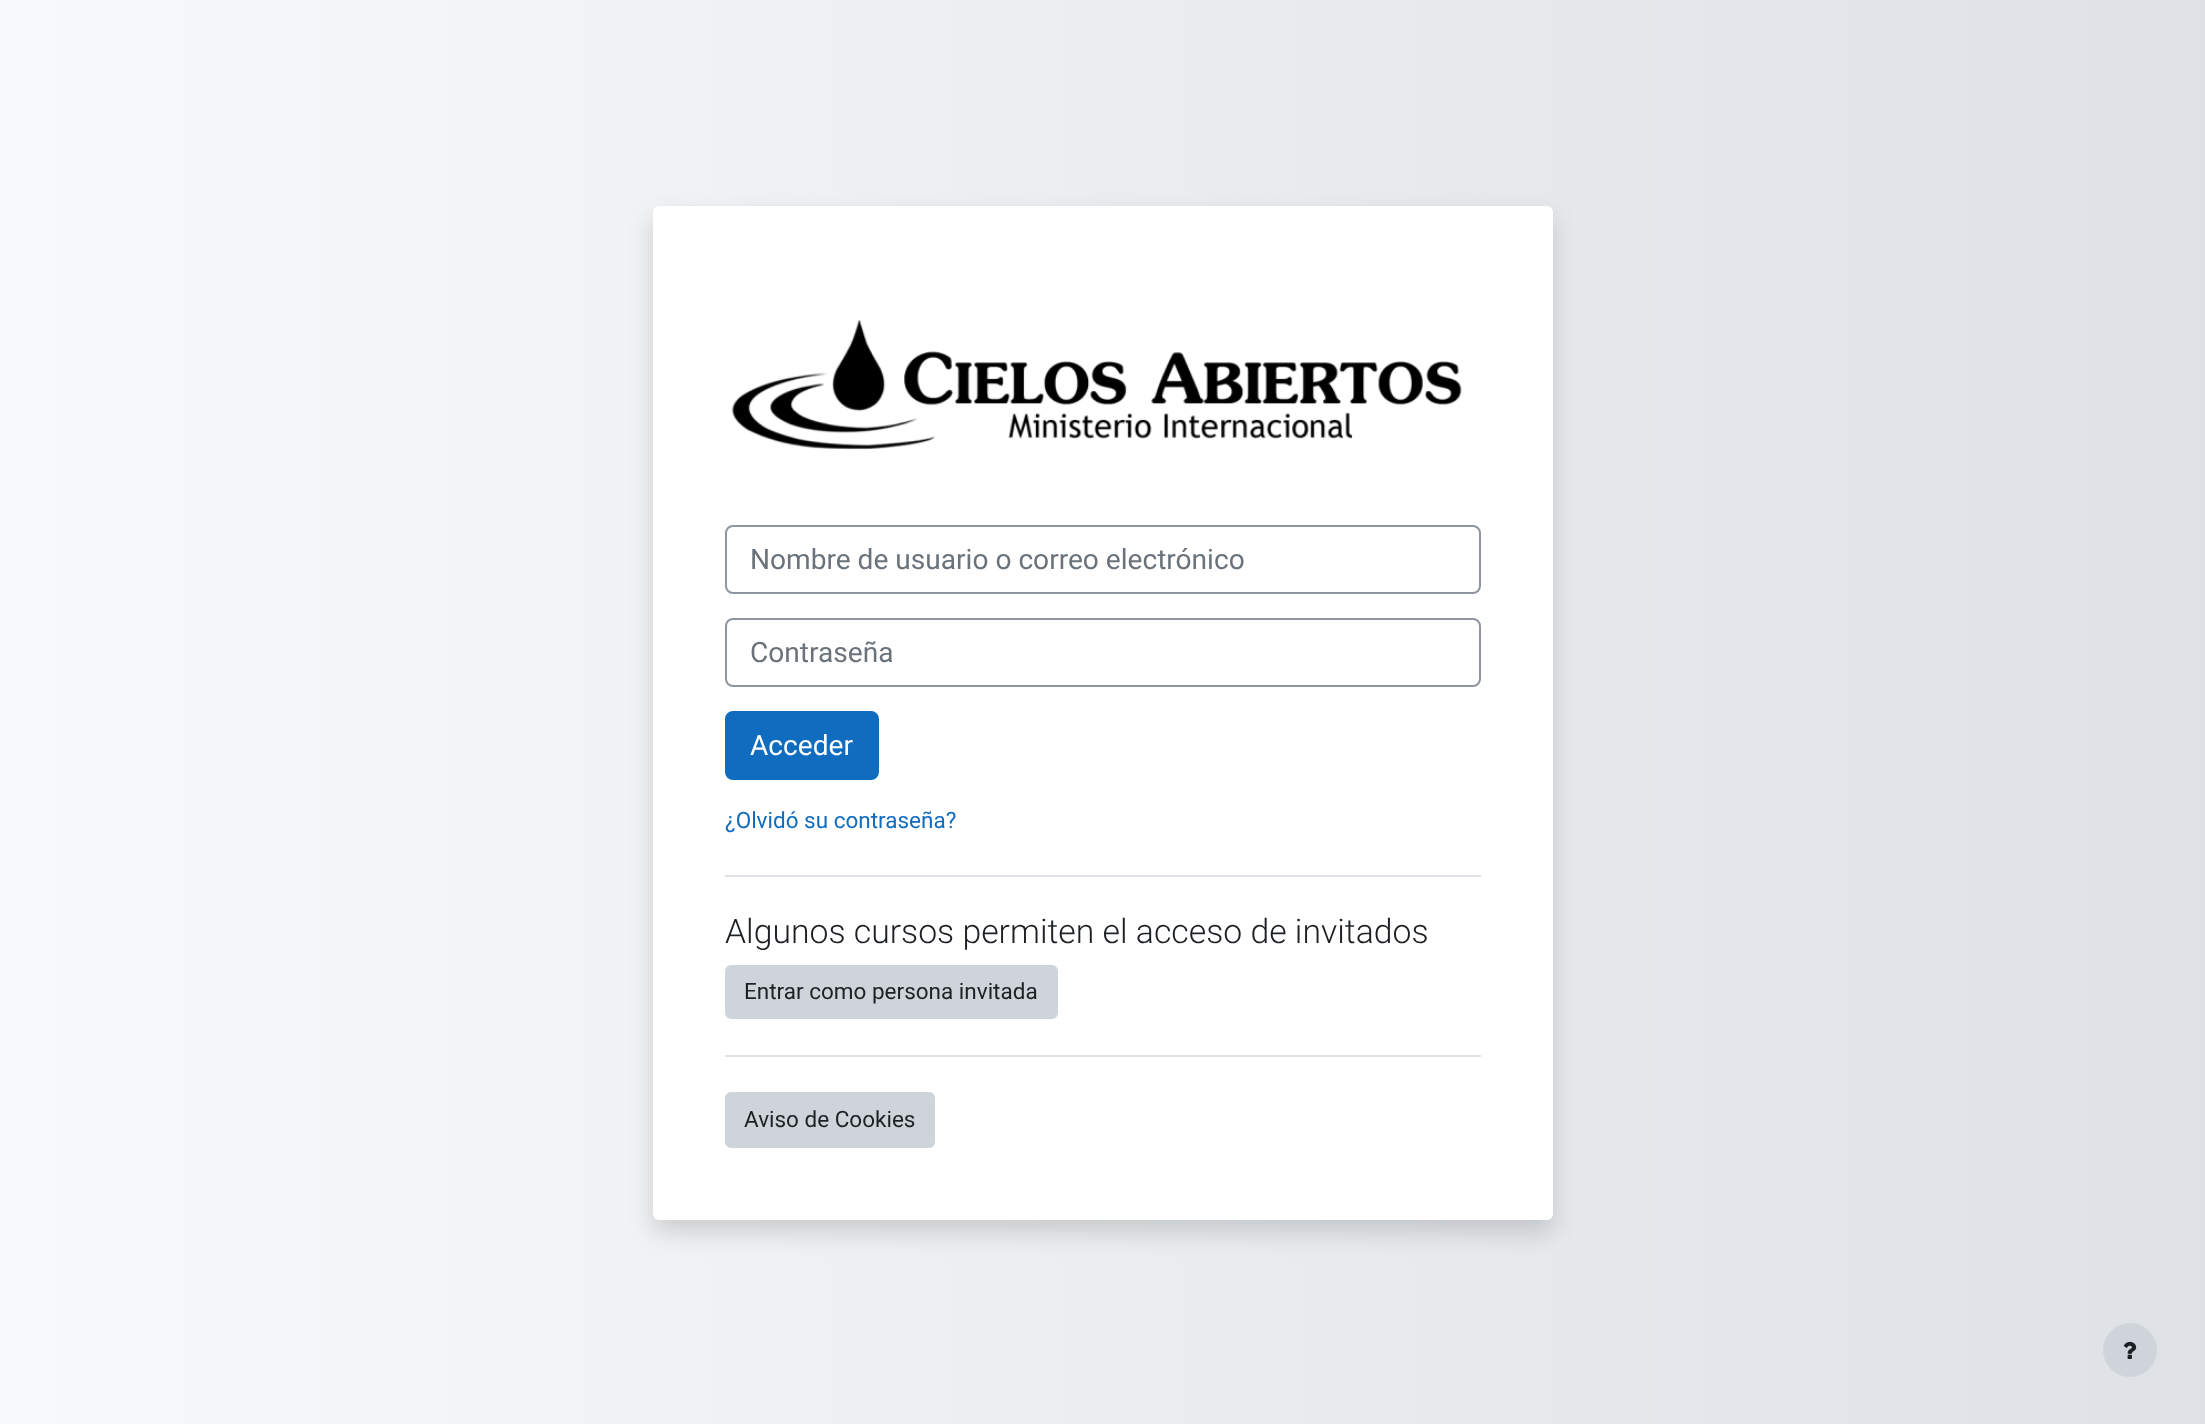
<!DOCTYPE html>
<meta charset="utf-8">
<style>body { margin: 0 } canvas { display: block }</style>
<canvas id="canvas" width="2205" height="1424"></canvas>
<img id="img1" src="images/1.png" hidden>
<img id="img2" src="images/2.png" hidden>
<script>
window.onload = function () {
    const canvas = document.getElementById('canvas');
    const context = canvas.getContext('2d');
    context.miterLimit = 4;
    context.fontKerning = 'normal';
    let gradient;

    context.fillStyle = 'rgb(255, 255, 255)';
    context.fillRect(0, 0, 2205, 1424);
    gradient = context.createLinearGradient(0, 713, 2205, 712);
    gradient.addColorStop(0, 'rgb(248, 249, 250)');
    gradient.addColorStop(1, 'rgb(222, 226, 230)');
    context.fillStyle = gradient;
    context.fillRect(0, 0, 2205, 1424);
    context.fillStyle = 'rgba(0, 0, 0, 0.15)';
    context.filter = 'blur(12px)';
    context.beginPath();
    context.roundRect(653, 218, 900, 1014, 6);
    context.fill();
    context.filter = 'none';
    context.fillStyle = 'rgb(255, 255, 255)';
    context.beginPath();
    context.roundRect(653, 206, 900, 1014, 6);
    context.fill();
    context.drawImage(document.getElementById('img1'), 731, 319, 731, 131);
    context.beginPath();
    context.roundRect(726, 526, 754, 67, 7);
    context.strokeStyle = 'rgb(143, 149, 158)';
    context.lineWidth = 2;
    context.stroke();
    context.beginPath();
    context.roundRect(726, 619, 754, 67, 7);
    context.stroke();
    context.fillStyle = 'rgb(15, 108, 191)';
    context.beginPath();
    context.roundRect(726, 712, 152, 67, 7);
    context.fill();
    context.strokeStyle = 'rgb(15, 108, 191)';
    context.stroke();
    context.fillStyle = 'rgb(222, 226, 230)';
    context.fillRect(725, 875, 756, 2);
    context.fillStyle = 'rgb(206, 212, 218)';
    context.beginPath();
    context.roundRect(726, 966, 331, 52, 5);
    context.fill();
    context.strokeStyle = 'rgb(206, 212, 218)';
    context.stroke();
    context.fillStyle = 'rgb(222, 226, 230)';
    context.fillRect(725, 1055, 756, 2);
    context.fillStyle = 'rgb(206, 212, 218)';
    context.beginPath();
    context.roundRect(726, 1093, 208, 54, 5);
    context.fill();
    context.stroke();
    context.beginPath();
    context.arc(2130, 1350, 27, 0, 2 * Math.PI);
    context.fill();
    context.drawImage(document.getElementById('img2'), 2123, 1341, 14, 18);
    context.font = '28.1px Roboto';
    context.fillStyle = 'rgb(106, 115, 123)';
    context.fillText('Nombre de usuario o correo electrónico', 750, 569);
    context.fillText('Contraseña', 750, 662);
    context.fillStyle = 'rgb(255, 255, 255)';
    context.fillText('Acceder', 750, 755);
    context.font = '22.5px Roboto';
    context.fillStyle = 'rgb(15, 108, 191)';
    context.fillText('¿Olvidó su contraseña?', 725, 828);
    context.font = '300 33.75px Roboto';
    context.fillStyle = 'rgb(29, 33, 37)';
    context.fillText('Algunos cursos permiten el acceso de invitados', 725, 943);
    context.font = '22.5px Roboto';
    context.fillText('Entrar como persona invitada', 744, 999);
    context.fillText('Aviso de Cookies', 744, 1127);
};
</script>
